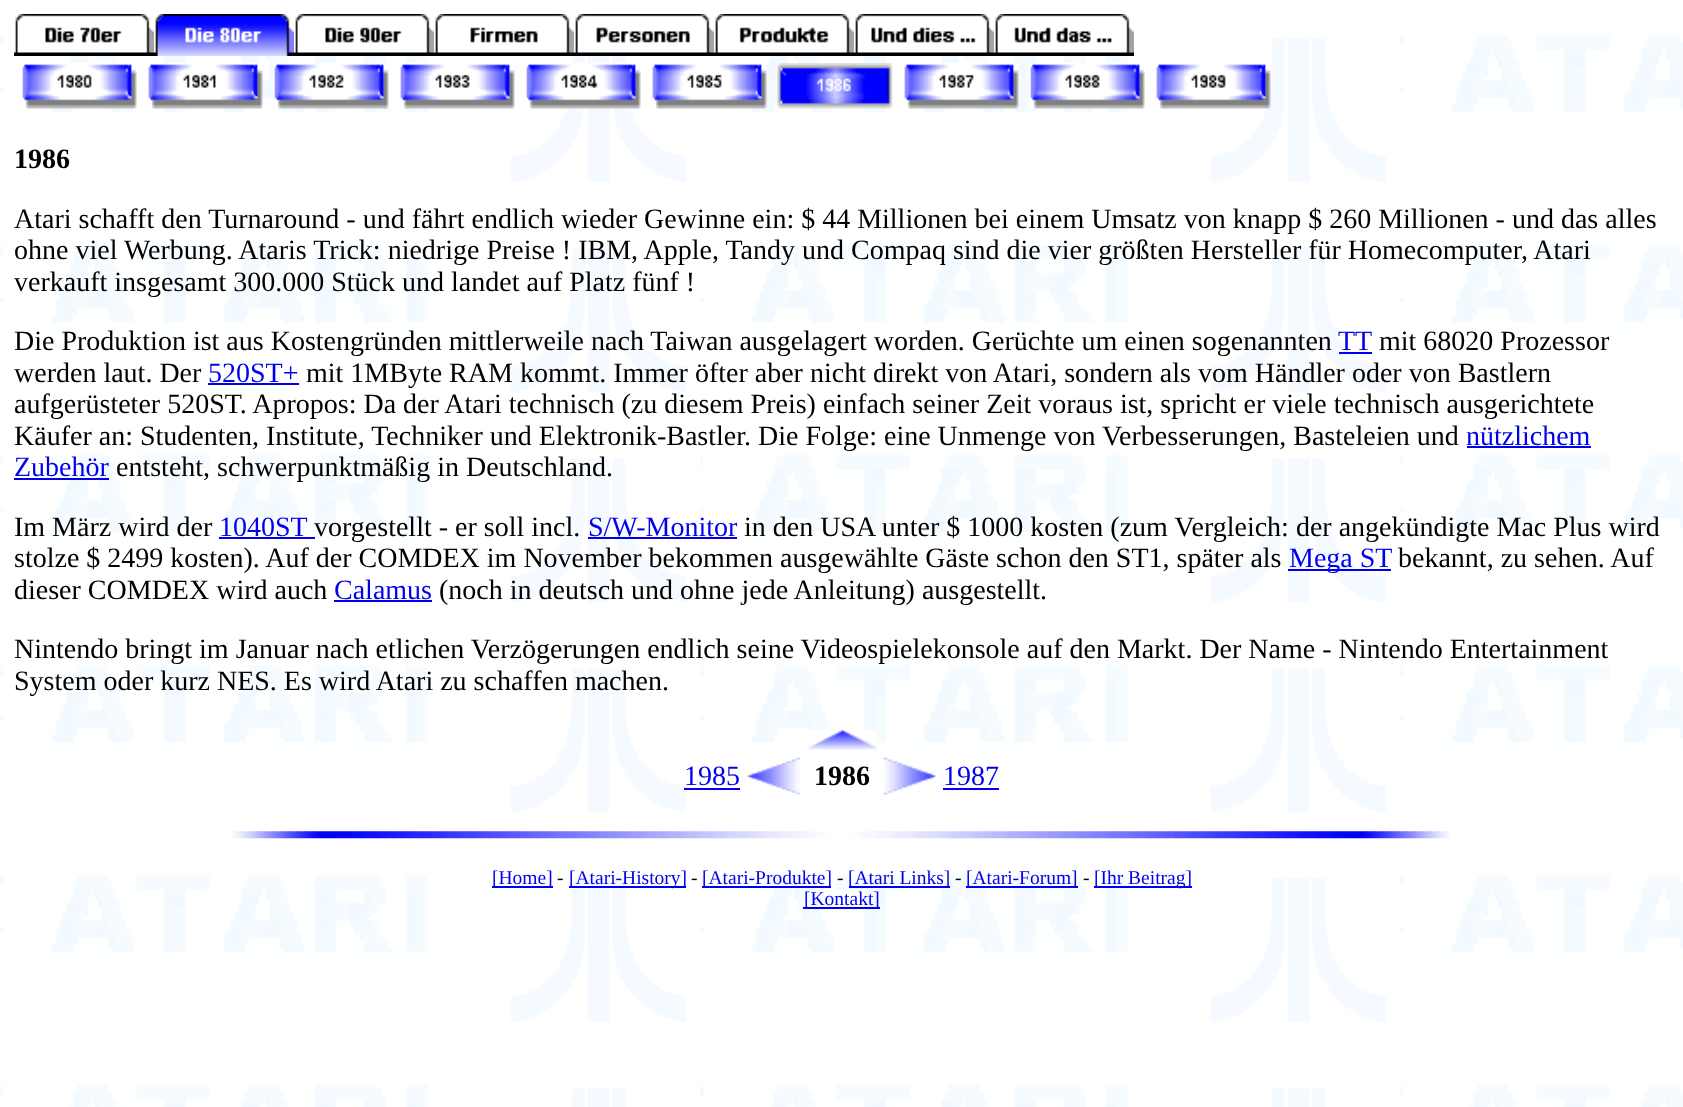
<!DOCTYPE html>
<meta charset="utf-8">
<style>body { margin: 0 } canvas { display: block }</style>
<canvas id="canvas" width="1683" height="1107"></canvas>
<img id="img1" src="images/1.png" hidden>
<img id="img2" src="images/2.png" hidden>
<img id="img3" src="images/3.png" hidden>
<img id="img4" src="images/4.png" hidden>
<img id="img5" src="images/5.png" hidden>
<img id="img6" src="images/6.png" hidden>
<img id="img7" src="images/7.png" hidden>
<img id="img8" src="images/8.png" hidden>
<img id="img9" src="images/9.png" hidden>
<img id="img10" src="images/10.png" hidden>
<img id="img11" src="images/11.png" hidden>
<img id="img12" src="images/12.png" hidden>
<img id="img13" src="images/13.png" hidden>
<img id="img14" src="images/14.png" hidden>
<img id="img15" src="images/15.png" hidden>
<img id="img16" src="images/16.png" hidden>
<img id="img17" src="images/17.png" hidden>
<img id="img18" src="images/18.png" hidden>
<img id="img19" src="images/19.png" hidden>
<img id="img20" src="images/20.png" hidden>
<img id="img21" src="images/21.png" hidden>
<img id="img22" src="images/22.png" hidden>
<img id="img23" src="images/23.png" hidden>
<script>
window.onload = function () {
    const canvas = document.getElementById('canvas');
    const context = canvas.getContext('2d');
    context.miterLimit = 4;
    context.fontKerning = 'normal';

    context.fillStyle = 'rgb(255, 255, 255)';
    context.fillRect(0, 0, 1683, 1107);
    context.drawImage(document.getElementById('img1'), 0, 35, 1683, 1072);
    context.drawImage(document.getElementById('img2'), 14, 14, 140, 42);
    context.drawImage(document.getElementById('img3'), 154, 14, 140, 42);
    context.drawImage(document.getElementById('img4'), 294, 14, 140, 42);
    context.drawImage(document.getElementById('img5'), 434, 14, 140, 42);
    context.drawImage(document.getElementById('img6'), 574, 14, 140, 42);
    context.drawImage(document.getElementById('img7'), 714, 14, 140, 42);
    context.drawImage(document.getElementById('img8'), 854, 14, 140, 42);
    context.drawImage(document.getElementById('img9'), 994, 14, 140, 42);
    context.drawImage(document.getElementById('img10'), 22, 63, 115, 46);
    context.drawImage(document.getElementById('img11'), 148, 63, 115, 46);
    context.drawImage(document.getElementById('img12'), 273, 63, 116, 46);
    context.drawImage(document.getElementById('img13'), 400, 63, 115, 46);
    context.drawImage(document.getElementById('img14'), 526, 63, 115, 46);
    context.drawImage(document.getElementById('img15'), 652, 64, 115, 45);
    context.drawImage(document.getElementById('img16'), 777, 63, 116, 46);
    context.drawImage(document.getElementById('img17'), 904, 63, 115, 46);
    context.drawImage(document.getElementById('img18'), 1029, 63, 116, 46);
    context.drawImage(document.getElementById('img19'), 1156, 64, 115, 45);
    context.fillStyle = 'rgb(0, 0, 238)';
    context.fillRect(1339, 352, 33, 2);
    context.fillRect(208, 383, 91, 2);
    context.fillRect(1467, 446, 124, 2);
    context.fillRect(14, 478, 95, 2);
    context.fillRect(219, 537, 96, 2);
    context.fillRect(588, 537, 149, 2);
    context.fillRect(1288, 569, 103, 2);
    context.fillRect(334, 600, 98, 2);
    context.drawImage(document.getElementById('img20'), 807, 729, 70, 21);
    context.fillRect(684, 788, 56, 2);
    context.drawImage(document.getElementById('img21'), 747, 757, 53, 38);
    context.drawImage(document.getElementById('img22'), 883, 757, 54, 38);
    context.fillRect(943, 788, 56, 2);
    context.drawImage(document.getElementById('img23'), 232, 831, 1219, 8);
    context.fillRect(492, 886, 61, 2);
    context.fillRect(569, 886, 117, 2);
    context.fillRect(702, 886, 129, 2);
    context.fillRect(849, 886, 101, 2);
    context.fillRect(966, 886, 112, 2);
    context.fillRect(1094, 886, 98, 2);
    context.fillRect(803, 907, 77, 2);
    context.font = 'bold 28px Liberation Serif';
    context.fillStyle = 'rgb(0, 0, 0)';
    context.fillText('1986', 14, 168);
    context.font = '28px Liberation Serif';
    context.fillText('Atari schafft den Turnaround - und fährt endlich wieder Gewinne ein: $ 44 Millionen bei einem Umsatz von knapp $ 260 Millionen - und das alles', 14, 228);
    context.fillText('ohne viel Werbung. Ataris Trick: niedrige Preise ! IBM, Apple, Tandy und Compaq sind die vier größten Hersteller für Homecomputer, Atari', 14, 259);
    context.fillText('verkauft insgesamt 300.000 Stück und landet auf Platz fünf !', 14, 291);
    context.fillText('Die Produktion ist aus Kostengründen mittlerweile nach Taiwan ausgelagert worden. Gerüchte um einen sogenannten', 14, 350);
    context.fillStyle = 'rgb(0, 0, 238)';
    context.fillText('TT', 1338, 350);
    context.fillStyle = 'rgb(0, 0, 0)';
    context.fillText('mit 68020 Prozessor', 1379, 350);
    context.fillText('werden laut. Der', 14, 382);
    context.fillStyle = 'rgb(0, 0, 238)';
    context.fillText('520ST+', 208, 382);
    context.fillStyle = 'rgb(0, 0, 0)';
    context.fillText('mit 1MByte RAM kommt. Immer öfter aber nicht direkt von Atari, sondern als vom Händler oder von Bastlern', 306, 382);
    context.fillText('aufgerüsteter 520ST. Apropos: Da der Atari technisch (zu diesem Preis) einfach seiner Zeit voraus ist, spricht er viele technisch ausgerichtete', 14, 413);
    context.fillText('Käufer an: Studenten, Institute, Techniker und Elektronik-Bastler. Die Folge: eine Unmenge von Verbesserungen, Basteleien und', 14, 445);
    context.fillStyle = 'rgb(0, 0, 238)';
    context.fillText('nützlichem', 1466, 445);
    context.fillText('Zubehör', 14, 476);
    context.fillStyle = 'rgb(0, 0, 0)';
    context.fillText('entsteht, schwerpunktmäßig in Deutschland.', 116, 476);
    context.fillText('Im März wird der', 14, 536);
    context.fillStyle = 'rgb(0, 0, 238)';
    context.fillText('1040ST', 219, 536);
    context.fillStyle = 'rgb(0, 0, 0)';
    context.fillText('vorgestellt - er soll incl.', 314, 536);
    context.fillStyle = 'rgb(0, 0, 238)';
    context.fillText('S/W-Monitor', 588, 536);
    context.fillStyle = 'rgb(0, 0, 0)';
    context.fillText('in den USA unter $ 1000 kosten (zum Vergleich: der angekündigte Mac Plus wird', 744, 536);
    context.fillText('stolze $ 2499 kosten). Auf der COMDEX im November bekommen ausgewählte Gäste schon den ST1, später als', 14, 567);
    context.fillStyle = 'rgb(0, 0, 238)';
    context.fillText('Mega ST', 1289, 567);
    context.fillStyle = 'rgb(0, 0, 0)';
    context.fillText('bekannt, zu sehen. Auf', 1398, 567);
    context.fillText('dieser COMDEX wird auch', 14, 599);
    context.fillStyle = 'rgb(0, 0, 238)';
    context.fillText('Calamus', 334, 599);
    context.fillStyle = 'rgb(0, 0, 0)';
    context.fillText('(noch in deutsch und ohne jede Anleitung) ausgestellt.', 439, 599);
    context.fillText('Nintendo bringt im Januar nach etlichen Verzögerungen endlich seine Videospielekonsole auf den Markt. Der Name - Nintendo Entertainment', 14, 658);
    context.fillText('System oder kurz NES. Es wird Atari zu schaffen machen.', 14, 690);
    context.fillStyle = 'rgb(0, 0, 238)';
    context.fillText('1985', 684, 785);
    context.font = 'bold 28px Liberation Serif';
    context.fillStyle = 'rgb(0, 0, 0)';
    context.fillText('1986', 814, 785);
    context.font = '28px Liberation Serif';
    context.fillStyle = 'rgb(0, 0, 238)';
    context.fillText('1987', 943, 785);
    context.font = '19.5px Liberation Serif';
    context.fillText('[Home]', 492, 884);
    context.fillStyle = 'rgb(0, 0, 0)';
    context.fillText('-', 557, 884);
    context.fillStyle = 'rgb(0, 0, 238)';
    context.fillText('[Atari-History]', 569, 884);
    context.fillStyle = 'rgb(0, 0, 0)';
    context.fillText('-', 691, 884);
    context.fillStyle = 'rgb(0, 0, 238)';
    context.fillText('[Atari-Produkte]', 702, 884);
    context.fillStyle = 'rgb(0, 0, 0)';
    context.fillText('-', 837, 884);
    context.fillStyle = 'rgb(0, 0, 238)';
    context.fillText('[Atari Links]', 848, 884);
    context.fillStyle = 'rgb(0, 0, 0)';
    context.fillText('-', 955, 884);
    context.fillStyle = 'rgb(0, 0, 238)';
    context.fillText('[Atari-Forum]', 966, 884);
    context.fillStyle = 'rgb(0, 0, 0)';
    context.fillText('-', 1083, 884);
    context.fillStyle = 'rgb(0, 0, 238)';
    context.fillText('[Ihr Beitrag]', 1094, 884);
    context.fillText('[Kontakt]', 804, 905);
};
</script>
